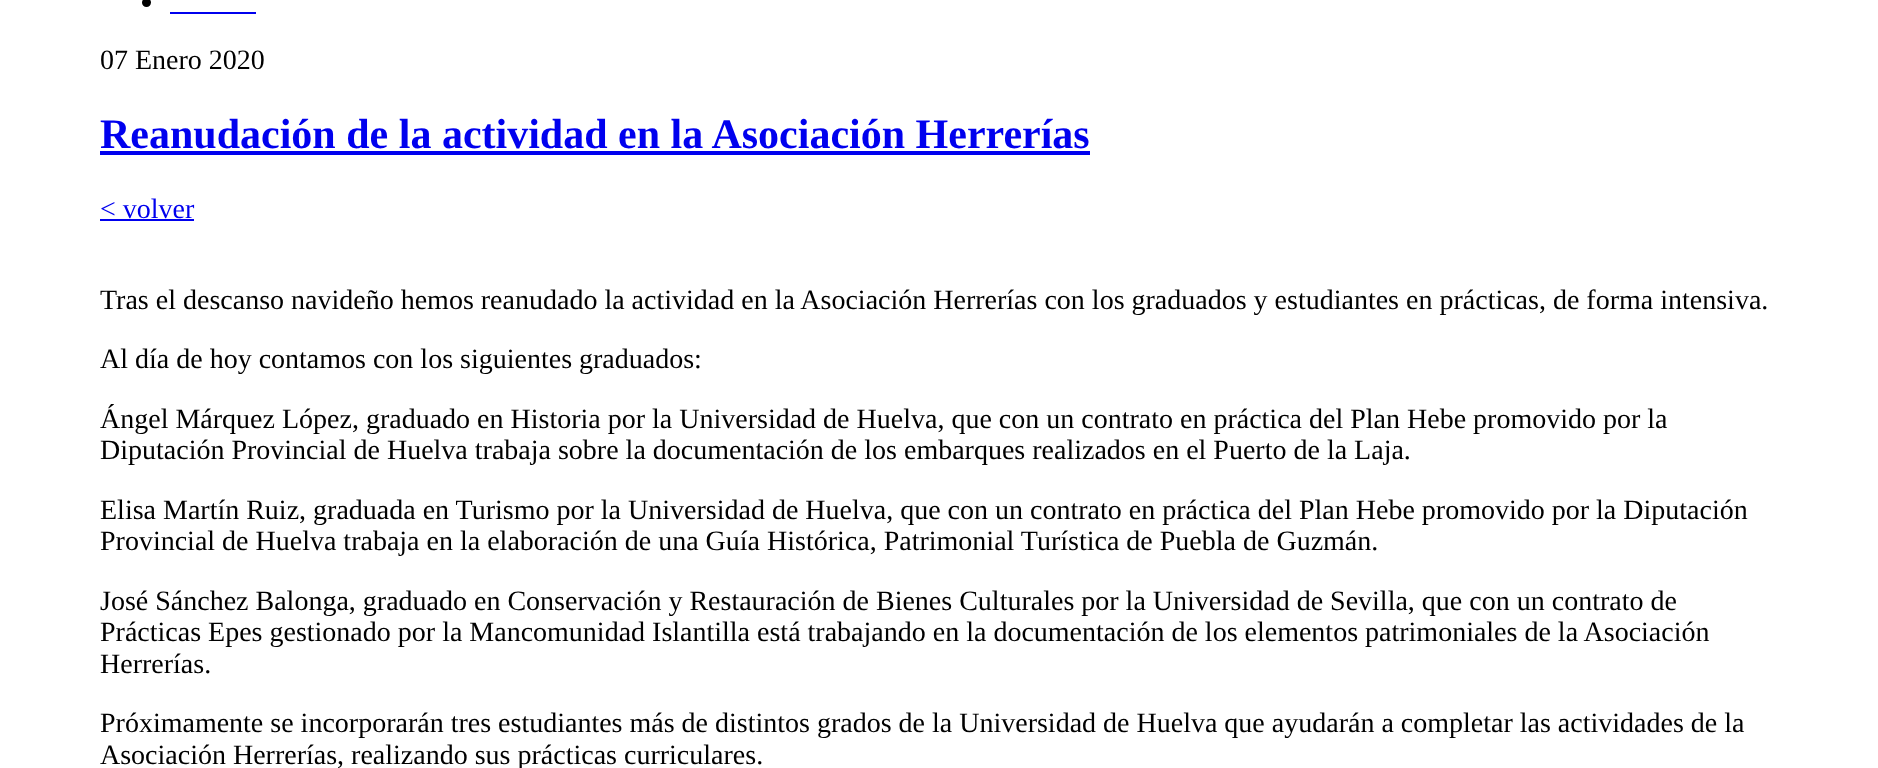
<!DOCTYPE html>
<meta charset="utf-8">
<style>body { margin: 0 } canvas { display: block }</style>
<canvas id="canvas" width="1878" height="768"></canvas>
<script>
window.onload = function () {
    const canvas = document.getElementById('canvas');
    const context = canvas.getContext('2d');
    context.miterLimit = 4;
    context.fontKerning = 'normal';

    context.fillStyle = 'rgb(255, 255, 255)';
    context.fillRect(0, 0, 1878, 768);
    context.fillStyle = 'rgb(0, 0, 0)';
    context.beginPath();
    context.arc(146.5, 2.5, 4.5, 0, 2 * Math.PI);
    context.fill();
    context.fillStyle = 'rgb(0, 0, 238)';
    context.fillRect(170, 12, 86, 2);
    context.fillRect(100, 151, 990, 4);
    context.fillRect(100, 219, 94, 2);
    context.font = '28px Liberation Serif';
    context.fillStyle = 'rgb(0, 0, 0)';
    context.fillText('07 Enero 2020', 100, 69);
    context.font = 'bold 42px Liberation Serif';
    context.fillStyle = 'rgb(0, 0, 238)';
    context.fillText('Reanudación de la actividad en la Asociación Herrerías', 100, 148);
    context.font = '28px Liberation Serif';
    context.fillText('< volver', 100, 218);
    context.fillStyle = 'rgb(0, 0, 0)';
    context.fillText('Tras el descanso navideño hemos reanudado la actividad en la Asociación Herrerías con los graduados y estudiantes en prácticas, de forma intensiva.', 100, 309);
    context.fillText('Al día de hoy contamos con los siguientes graduados:', 100, 368);
    context.fillText('Ángel Márquez López, graduado en Historia por la Universidad de Huelva, que con un contrato en práctica del Plan Hebe promovido por la', 100, 428);
    context.fillText('Diputación Provincial de Huelva trabaja sobre la documentación de los embarques realizados en el Puerto de la Laja.', 100, 459);
    context.fillText('Elisa Martín Ruiz, graduada en Turismo por la Universidad de Huelva, que con un contrato en práctica del Plan Hebe promovido por la Diputación', 100, 519);
    context.fillText('Provincial de Huelva trabaja en la elaboración de una Guía Histórica, Patrimonial Turística de Puebla de Guzmán.', 100, 550);
    context.fillText('José Sánchez Balonga, graduado en Conservación y Restauración de Bienes Culturales por la Universidad de Sevilla, que con un contrato de', 100, 610);
    context.fillText('Prácticas Epes gestionado por la Mancomunidad Islantilla está trabajando en la documentación de los elementos patrimoniales de la Asociación', 100, 641);
    context.fillText('Herrerías.', 100, 673);
    context.fillText('Próximamente se incorporarán tres estudiantes más de distintos grados de la Universidad de Huelva que ayudarán a completar las actividades de la', 100, 732);
    context.fillText('Asociación Herrerías, realizando sus prácticas curriculares.', 100, 764);
};
</script>
